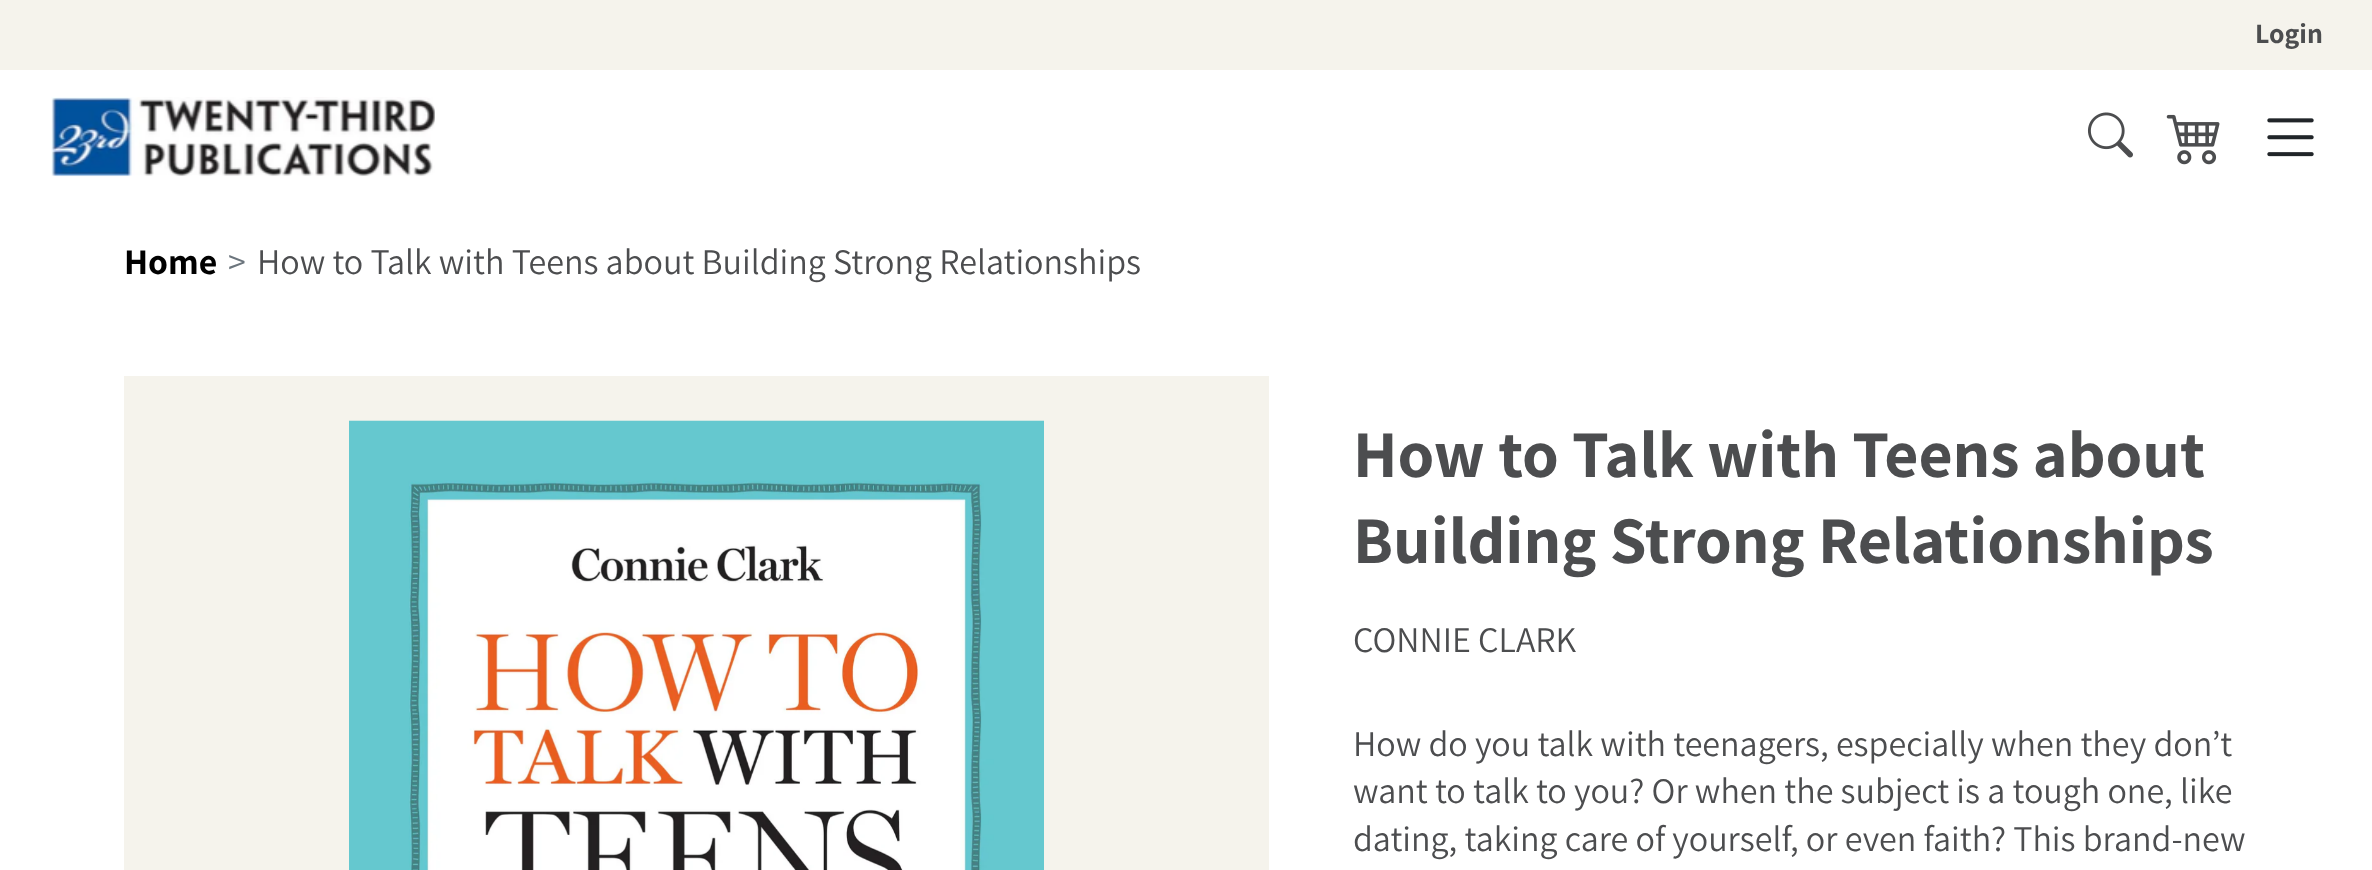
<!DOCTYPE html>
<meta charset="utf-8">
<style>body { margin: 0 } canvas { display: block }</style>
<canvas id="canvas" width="2372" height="870"></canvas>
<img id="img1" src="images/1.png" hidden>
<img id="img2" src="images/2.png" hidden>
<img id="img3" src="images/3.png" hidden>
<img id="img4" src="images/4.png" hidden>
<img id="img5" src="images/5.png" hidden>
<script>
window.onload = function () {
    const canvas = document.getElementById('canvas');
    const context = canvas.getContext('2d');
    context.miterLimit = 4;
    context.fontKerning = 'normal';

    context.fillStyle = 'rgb(255, 255, 255)';
    context.fillRect(0, 0, 2372, 870);
    context.fillStyle = 'rgb(245, 243, 236)';
    context.fillRect(0, 0, 2372, 70);
    context.drawImage(document.getElementById('img1'), 51, 97, 384, 80);
    context.drawImage(document.getElementById('img2'), 2087, 112, 46, 46);
    context.drawImage(document.getElementById('img3'), 2166, 114, 54, 51);
    context.drawImage(document.getElementById('img4'), 2267, 118, 47, 39);
    context.fillRect(124, 376, 1145, 494);
    context.drawImage(document.getElementById('img5'), 349, 420, 695, 450);
    context.font = 'bold 28px Assistant';
    context.fillStyle = 'rgb(76, 77, 79)';
    context.fillText('Login', 2255, 43);
    context.font = 'bold 36px Assistant';
    context.fillStyle = 'rgb(0, 0, 0)';
    context.fillText('Home', 124, 274);
    context.font = '36px Assistant';
    context.fillStyle = 'rgb(108, 117, 125)';
    context.fillText('>', 228, 274);
    context.fillStyle = 'rgb(76, 77, 79)';
    context.fillText('How to Talk with Teens about Building Strong Relationships', 257, 274);
    context.font = 'bold 66.5px Assistant';
    context.fillText('How to Talk with Teens about', 1353, 477);
    context.fillText('Building Strong Relationships', 1353, 563);
    context.font = '36px Assistant';
    context.fillText('CONNIE CLARK', 1353, 652);
    context.fillText('How do you talk with teenagers, especially when they don’t', 1353, 756);
    context.fillText('want to talk to you? Or when the subject is a tough one, like', 1353, 803);
    context.fillText('dating, taking care of yourself, or even faith? This brand-new', 1353, 851);
};
</script>
